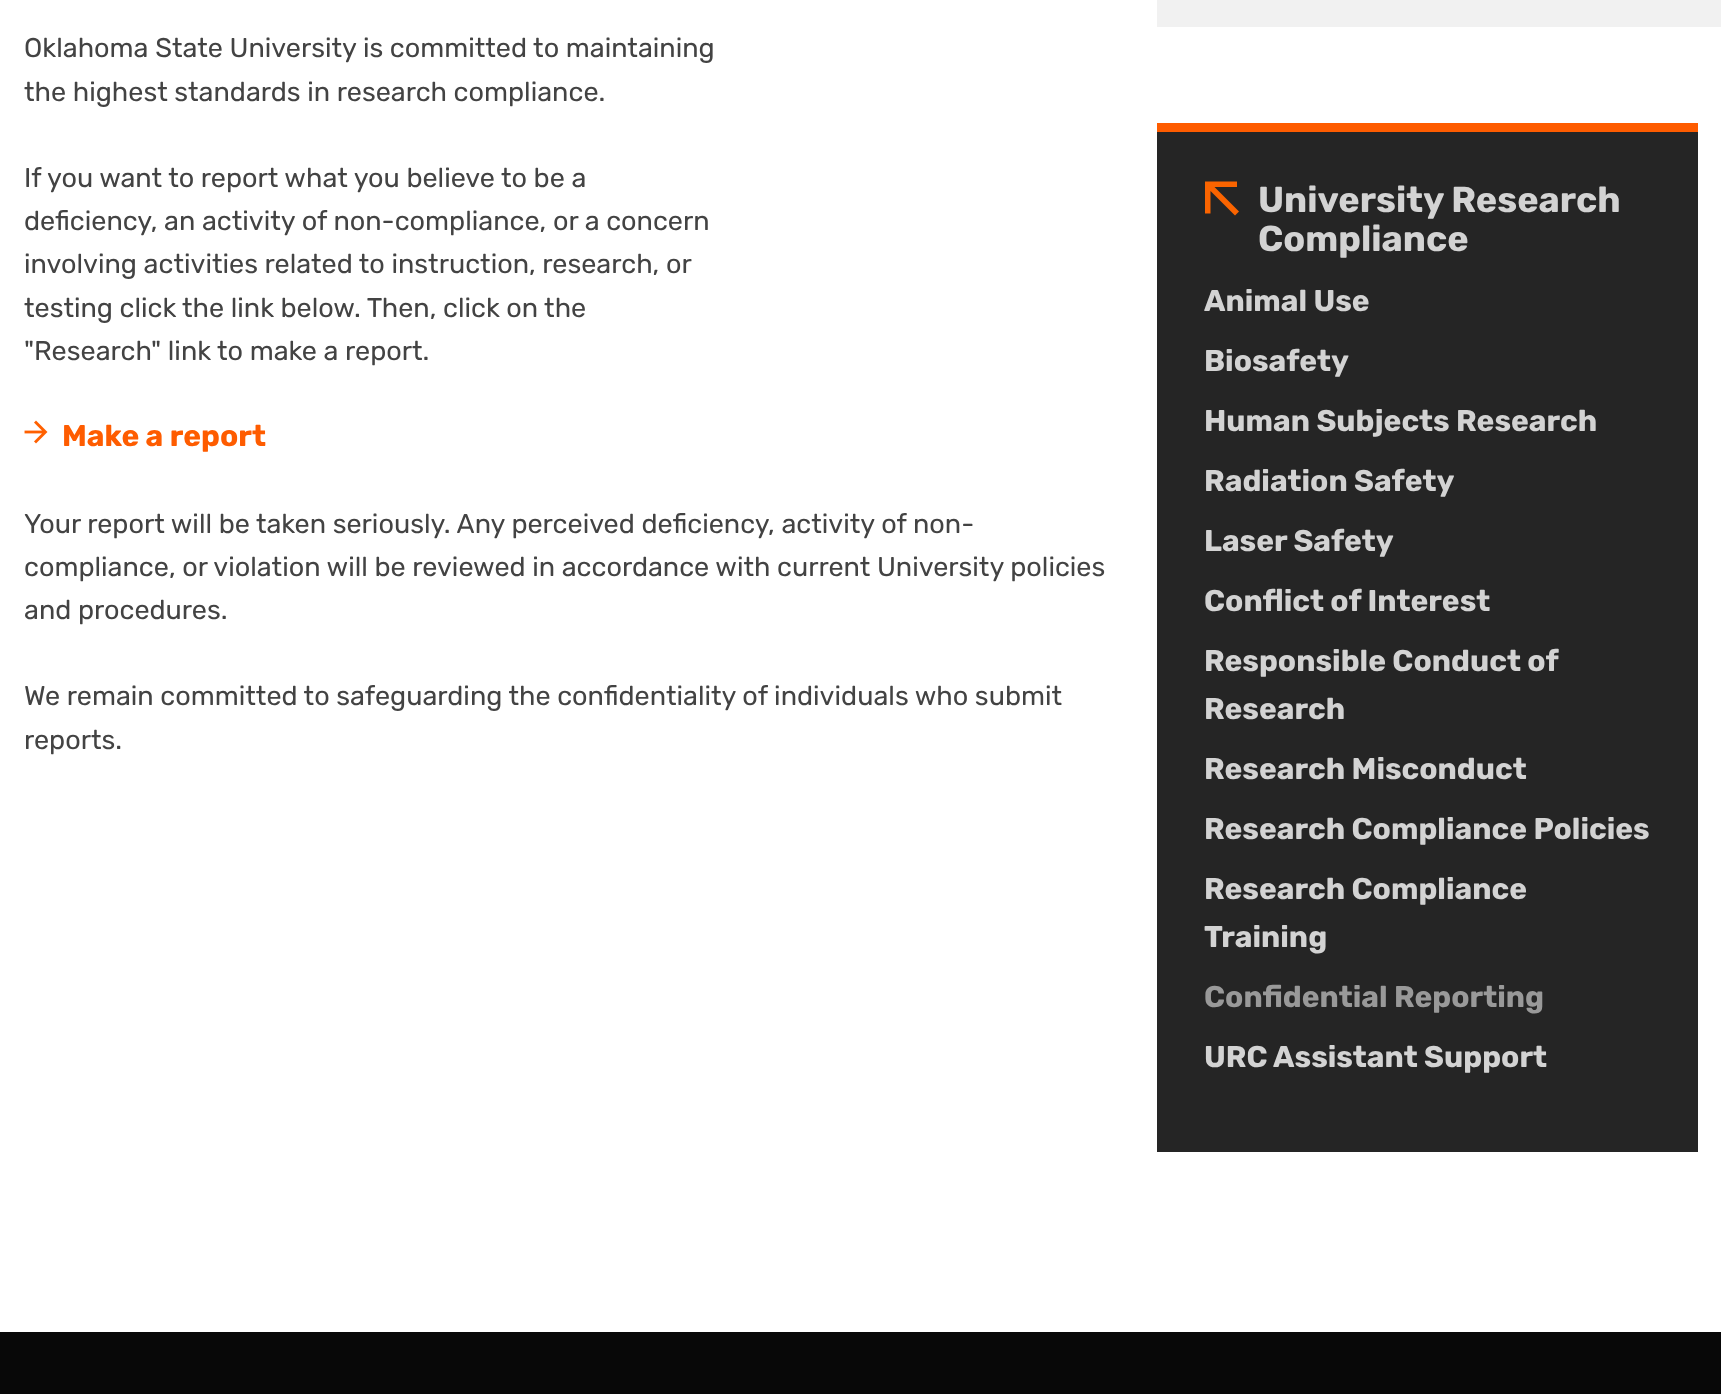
<!DOCTYPE html>
<meta charset="utf-8">
<style>body { margin: 0 } canvas { display: block }</style>
<canvas id="canvas" width="1721" height="1394"></canvas>
<img id="img1" src="images/1.png" hidden>
<script>
window.onload = function () {
    const canvas = document.getElementById('canvas');
    const context = canvas.getContext('2d');
    context.miterLimit = 4;
    context.fontKerning = 'normal';

    context.fillStyle = 'rgb(255, 255, 255)';
    context.fillRect(0, 0, 1721, 1394);
    context.drawImage(document.getElementById('img1'), 24, 420, 24, 24);
    context.fillStyle = 'rgb(241, 241, 241)';
    context.fillRect(1157, 0, 564, 27);
    context.fillStyle = 'rgb(37, 37, 37)';
    context.fillRect(1157, 132, 541, 1020);
    context.fillStyle = 'rgb(254, 92, 0)';
    context.fillRect(1157, 123, 541, 9);
    context.fillStyle = 'rgb(250, 100, 0)';
    context.beginPath();
    context.moveTo(1235, 215.5);
    context.lineTo(1239, 211.5);
    context.lineTo(1214.5, 187);
    context.lineTo(1237, 187);
    context.lineTo(1237, 181.5);
    context.lineTo(1205, 181.5);
    context.lineTo(1205, 213.5);
    context.lineTo(1210.5, 213.5);
    context.lineTo(1210.5, 191);
    context.closePath();
    context.fill('evenodd');
    context.fillStyle = 'rgb(8, 8, 8)';
    context.fillRect(0, 1332, 1721, 62);
    context.font = '27px Rubik';
    context.fillStyle = 'rgb(67, 67, 67)';
    context.fillText('Oklahoma State University is committed to maintaining', 24, 57);
    context.fillText('the highest standards in research compliance.', 24, 101);
    context.fillText('If you want to report what you believe to be a', 24, 187);
    context.fillText('deficiency, an activity of non-compliance, or a concern', 24, 230);
    context.fillText('involving activities related to instruction, research, or', 24, 273);
    context.fillText('testing click', 24, 317);
    context.fillText('the link below. Then, click on the', 182, 317);
    context.fillText('"Research" link to make a report.', 24, 360);
    context.font = 'bold 30px Rubik';
    context.fillStyle = 'rgb(254, 92, 0)';
    context.fillText('Make a report', 62, 446);
    context.font = '27px Rubik';
    context.fillStyle = 'rgb(67, 67, 67)';
    context.fillText('Your report will be taken seriously. Any perceived deficiency, activity of non-', 24, 533);
    context.fillText('compliance, or violation will be reviewed in accordance with current University policies', 24, 576);
    context.fillText('and procedures.', 24, 619);
    context.fillText('We remain committed to safeguarding the confidentiality of individuals who submit', 24, 705);
    context.fillText('reports.', 24, 749);
    context.font = 'bold 36px Rubik';
    context.fillStyle = 'rgb(211, 211, 211)';
    context.fillText('University Research', 1258, 212);
    context.fillText('Compliance', 1258, 251);
    context.font = 'bold 30px Rubik';
    context.fillText('Animal Use', 1204, 311);
    context.fillText('Biosafety', 1204, 371);
    context.fillText('Human Subjects Research', 1204, 431);
    context.fillText('Radiation Safety', 1204, 491);
    context.fillText('Laser Safety', 1204, 551);
    context.fillText('Conflict of Interest', 1204, 611);
    context.fillText('Responsible Conduct of', 1204, 671);
    context.fillText('Research', 1204, 719);
    context.fillText('Research Misconduct', 1204, 779);
    context.fillText('Research Compliance Policies', 1204, 839);
    context.fillText('Research Compliance', 1204, 899);
    context.fillText('Training', 1204, 947);
    context.fillStyle = 'rgb(153, 153, 153)';
    context.fillText('Confidential Reporting', 1204, 1007);
    context.fillStyle = 'rgb(211, 211, 211)';
    context.fillText('URC Assistant Support', 1204, 1067);
};
</script>
